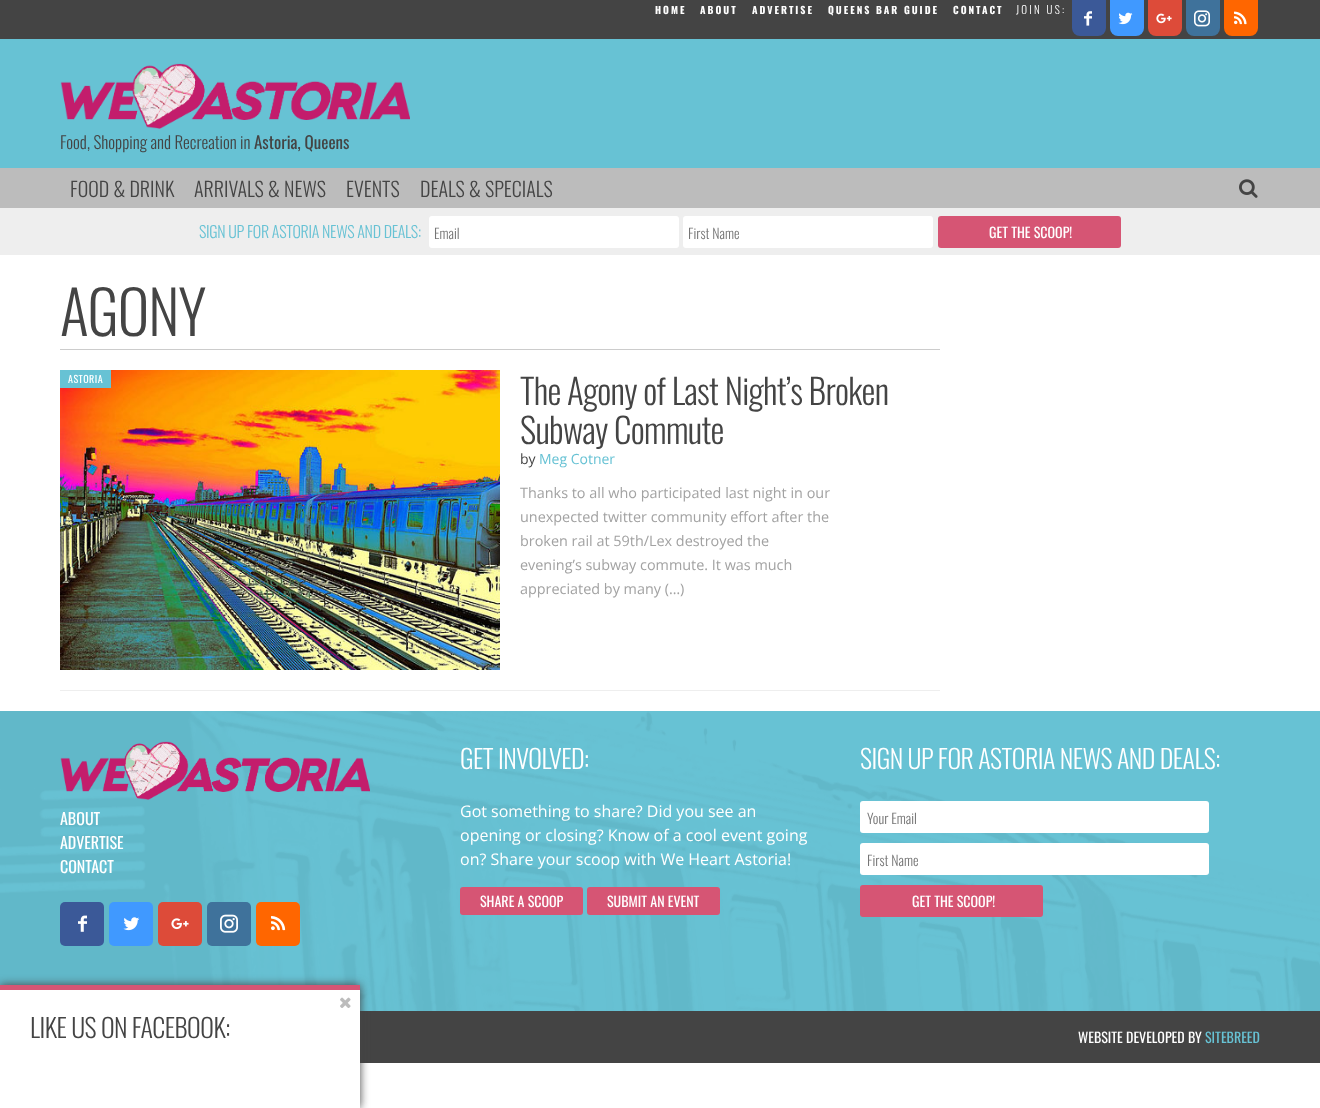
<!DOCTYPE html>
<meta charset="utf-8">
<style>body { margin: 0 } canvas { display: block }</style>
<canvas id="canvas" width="1320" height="1108"></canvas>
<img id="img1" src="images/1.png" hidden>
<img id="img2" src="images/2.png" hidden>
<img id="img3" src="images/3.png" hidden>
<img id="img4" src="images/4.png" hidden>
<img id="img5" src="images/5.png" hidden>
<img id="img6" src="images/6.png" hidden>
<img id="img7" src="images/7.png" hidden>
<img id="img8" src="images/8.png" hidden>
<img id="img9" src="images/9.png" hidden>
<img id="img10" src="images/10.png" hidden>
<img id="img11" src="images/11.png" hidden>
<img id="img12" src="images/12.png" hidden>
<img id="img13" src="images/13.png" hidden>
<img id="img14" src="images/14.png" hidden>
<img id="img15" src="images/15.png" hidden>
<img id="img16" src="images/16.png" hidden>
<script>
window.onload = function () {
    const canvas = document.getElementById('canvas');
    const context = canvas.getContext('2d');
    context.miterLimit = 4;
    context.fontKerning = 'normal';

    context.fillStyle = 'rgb(255, 255, 255)';
    context.fillRect(0, 0, 1320, 1108);
    context.fillStyle = 'rgb(103, 194, 212)';
    context.fillRect(0, 39, 1320, 129);
    context.fillStyle = 'rgb(68, 68, 68)';
    context.fillRect(0, 0, 1320, 39);
    context.fillStyle = 'rgb(59, 89, 152)';
    context.beginPath();
    context.roundRect(1072, 0, 34, 36, [0, 0, 8, 8]);
    context.fill();
    context.drawImage(document.getElementById('img1'), 1084, 11, 8, 15);
    context.fillStyle = 'rgb(64, 153, 255)';
    context.beginPath();
    context.roundRect(1110, 0, 34, 36, [0, 0, 8, 8]);
    context.fill();
    context.drawImage(document.getElementById('img2'), 1118, 12, 15, 13);
    context.fillStyle = 'rgb(221, 75, 57)';
    context.beginPath();
    context.roundRect(1148, 0, 34, 36, [0, 0, 8, 8]);
    context.fill();
    context.drawImage(document.getElementById('img3'), 1156, 13, 16, 11);
    context.fillStyle = 'rgb(63, 114, 155)';
    context.beginPath();
    context.roundRect(1186, 0, 34, 36, [0, 0, 8, 8]);
    context.fill();
    context.drawImage(document.getElementById('img4'), 1194, 10, 16, 17);
    context.fillStyle = 'rgb(255, 102, 0)';
    context.beginPath();
    context.roundRect(1224, 0, 34, 36, [0, 0, 8, 8]);
    context.fill();
    context.drawImage(document.getElementById('img5'), 1234, 11, 13, 14);
    context.drawImage(document.getElementById('img6'), 60, 63, 350, 66);
    context.fillStyle = 'rgb(188, 188, 188)';
    context.fillRect(0, 168, 1320, 40);
    context.drawImage(document.getElementById('img7'), 1239, 179, 19, 19);
    context.fillStyle = 'rgb(238, 238, 238)';
    context.fillRect(0, 208, 1320, 47);
    context.fillStyle = 'rgb(255, 255, 255)';
    context.beginPath();
    context.roundRect(429, 216, 250, 32, 3);
    context.fill();
    context.beginPath();
    context.roundRect(683, 216, 250, 32, 3);
    context.fill();
    context.fillStyle = 'rgb(214, 85, 116)';
    context.beginPath();
    context.roundRect(938, 216, 183, 32, 3);
    context.fill();
    context.fillStyle = 'rgb(204, 204, 204)';
    context.fillRect(60, 349, 880, 1);
    context.fillStyle = 'rgb(238, 238, 238)';
    context.fillRect(60, 690, 880, 1);
    context.drawImage(document.getElementById('img8'), 60, 370, 440, 300);
    context.fillStyle = 'rgb(103, 194, 212)';
    context.fillRect(60, 370, 51, 18);
    context.fillRect(0, 711, 1320, 300);
    context.drawImage(document.getElementById('img9'), 0, 711, 1320, 300);
    context.drawImage(document.getElementById('img10'), 60, 741, 310, 59);
    context.fillStyle = 'rgb(59, 89, 152)';
    context.beginPath();
    context.roundRect(60, 902, 44, 44, 5);
    context.fill();
    context.drawImage(document.getElementById('img11'), 78, 915, 9, 17);
    context.fillStyle = 'rgb(64, 153, 255)';
    context.beginPath();
    context.roundRect(109, 902, 44, 44, 5);
    context.fill();
    context.drawImage(document.getElementById('img12'), 123, 917, 17, 14);
    context.fillStyle = 'rgb(221, 75, 57)';
    context.beginPath();
    context.roundRect(158, 902, 44, 44, 5);
    context.fill();
    context.drawImage(document.getElementById('img13'), 171, 918, 18, 12);
    context.fillStyle = 'rgb(63, 114, 155)';
    context.beginPath();
    context.roundRect(207, 902, 44, 44, 5);
    context.fill();
    context.drawImage(document.getElementById('img14'), 220, 914, 18, 19);
    context.fillStyle = 'rgb(255, 102, 0)';
    context.beginPath();
    context.roundRect(256, 902, 44, 44, 5);
    context.fill();
    context.drawImage(document.getElementById('img15'), 271, 916, 15, 15);
    context.fillStyle = 'rgb(214, 85, 116)';
    context.beginPath();
    context.roundRect(460, 887, 123, 28, 3);
    context.fill();
    context.beginPath();
    context.roundRect(587, 887, 133, 28, 3);
    context.fill();
    context.fillStyle = 'rgb(255, 255, 255)';
    context.beginPath();
    context.roundRect(860, 801, 349, 32, 3);
    context.fill();
    context.beginPath();
    context.roundRect(860, 843, 349, 32, 3);
    context.fill();
    context.fillStyle = 'rgb(214, 85, 116)';
    context.beginPath();
    context.roundRect(860, 885, 183, 32, 3);
    context.fill();
    context.fillStyle = 'rgb(68, 68, 68)';
    context.fillRect(360, 1011, 960, 52);
    context.filter = 'blur(5px)';
    context.beginPath();
    context.rect(0, 985, 360, 123);
    context.fill();
    context.filter = 'none';
    context.fillStyle = 'rgb(255, 255, 255)';
    context.fillRect(0, 990, 360, 118);
    context.fillStyle = 'rgb(214, 85, 116)';
    context.fillRect(0, 985, 360, 5);
    context.drawImage(document.getElementById('img16'), 340, 997, 11, 11);
    context.letterSpacing = '2px';
    context.font = 'bold 10px Oswald';
    context.fillStyle = 'rgb(255, 255, 255)';
    context.fillText('HOME', 655, 14);
    context.fillText('ABOUT', 700, 14);
    context.fillText('ADVERTISE', 752, 14);
    context.fillText('QUEENS BAR GUIDE', 828, 14);
    context.fillText('CONTACT', 953, 14);
    context.letterSpacing = '2.25px';
    context.font = '300 11px Oswald';
    context.fillText('JOIN US:', 1016, 14);
    context.letterSpacing = '0px';
    context.font = '300 17px Oswald';
    context.fillStyle = 'rgb(68, 68, 68)';
    context.fillText('Food, Shopping and Recreation in', 60, 149);
    context.font = '17px Oswald';
    context.fillText('Astoria, Queens', 254, 149);
    context.font = '300 20px Oswald';
    context.fillText('FOOD & DRINK', 70, 197);
    context.fillText('ARRIVALS & NEWS', 194, 197);
    context.fillText('EVENTS', 346, 197);
    context.fillText('DEALS & SPECIALS', 420, 197);
    context.letterSpacing = '-0.3px';
    context.font = '300 16px Oswald';
    context.fillStyle = 'rgb(103, 194, 212)';
    context.fillText('SIGN UP FOR ASTORIA NEWS AND DEALS:', 199, 238);
    context.letterSpacing = '0px';
    context.font = '300 14px Oswald';
    context.fillStyle = 'rgb(117, 117, 117)';
    context.fillText('Email', 434, 239);
    context.fillText('First Name', 688, 239);
    context.font = '14px Oswald';
    context.fillStyle = 'rgb(255, 255, 255)';
    context.fillText('GET THE SCOOP!', 989, 238);
    context.letterSpacing = '-1px';
    context.font = '300 60px Oswald';
    context.fillStyle = 'rgb(68, 68, 68)';
    context.fillText('AGONY', 60, 336);
    context.letterSpacing = '0.5px';
    context.font = '10px Oswald';
    context.fillStyle = 'rgb(255, 255, 255)';
    context.fillText('ASTORIA', 68, 383);
    context.letterSpacing = '-0.7px';
    context.font = '300 35px Oswald';
    context.fillStyle = 'rgb(68, 68, 68)';
    context.fillText('The Agony of Last Night’s Broken', 520, 405);
    context.fillText('Subway Commute', 520, 444);
    context.letterSpacing = '0px';
    context.font = '14px Open Sans';
    context.fillText('by', 520, 464);
    context.fillStyle = 'rgb(103, 194, 212)';
    context.fillText('Meg Cotner', 539, 464);
    context.font = '14.4px Open Sans';
    context.fillStyle = 'rgb(162, 162, 162)';
    context.fillText('Thanks to all who participated last night in our', 520, 498);
    context.fillText('unexpected twitter community effort after the', 520, 522);
    context.fillText('broken rail at 59th/Lex destroyed the', 520, 546);
    context.fillText('evening’s subway commute. It was much', 520, 570);
    context.fillText('appreciated by many (…)', 520, 594);
    context.font = '16px Oswald';
    context.fillStyle = 'rgb(255, 255, 255)';
    context.fillText('ABOUT', 60, 825);
    context.fillText('ADVERTISE', 60, 849);
    context.fillText('CONTACT', 60, 873);
    context.letterSpacing = '-0.5px';
    context.font = '300 26px Oswald';
    context.fillText('GET INVOLVED:', 460, 769);
    context.letterSpacing = '0px';
    context.font = '16px Open Sans';
    context.fillText('Got something to share? Did you see an', 460, 817);
    context.fillText('opening or closing? Know of a cool event going', 460, 841);
    context.fillText('on? Share your scoop with We Heart Astoria!', 460, 865);
    context.font = '14px Oswald';
    context.fillText('SHARE A SCOOP', 480, 907);
    context.fillText('SUBMIT AN EVENT', 607, 907);
    context.letterSpacing = '-0.5px';
    context.font = '300 26px Oswald';
    context.fillText('SIGN UP FOR ASTORIA NEWS AND DEALS:', 860, 769);
    context.letterSpacing = '0px';
    context.font = '300 14px Oswald';
    context.fillStyle = 'rgb(117, 117, 117)';
    context.fillText('Your Email', 867, 824);
    context.fillText('First Name', 867, 866);
    context.font = '14px Oswald';
    context.fillStyle = 'rgb(255, 255, 255)';
    context.fillText('GET THE SCOOP!', 912, 907);
    context.fillText('WEBSITE DEVELOPED BY', 1078, 1043);
    context.fillStyle = 'rgb(103, 194, 212)';
    context.fillText('SITEBREED', 1205, 1043);
    context.letterSpacing = '-0.5px';
    context.font = '300 26px Oswald';
    context.fillStyle = 'rgb(68, 68, 68)';
    context.fillText('LIKE US ON FACEBOOK:', 30, 1038);
};
</script>
